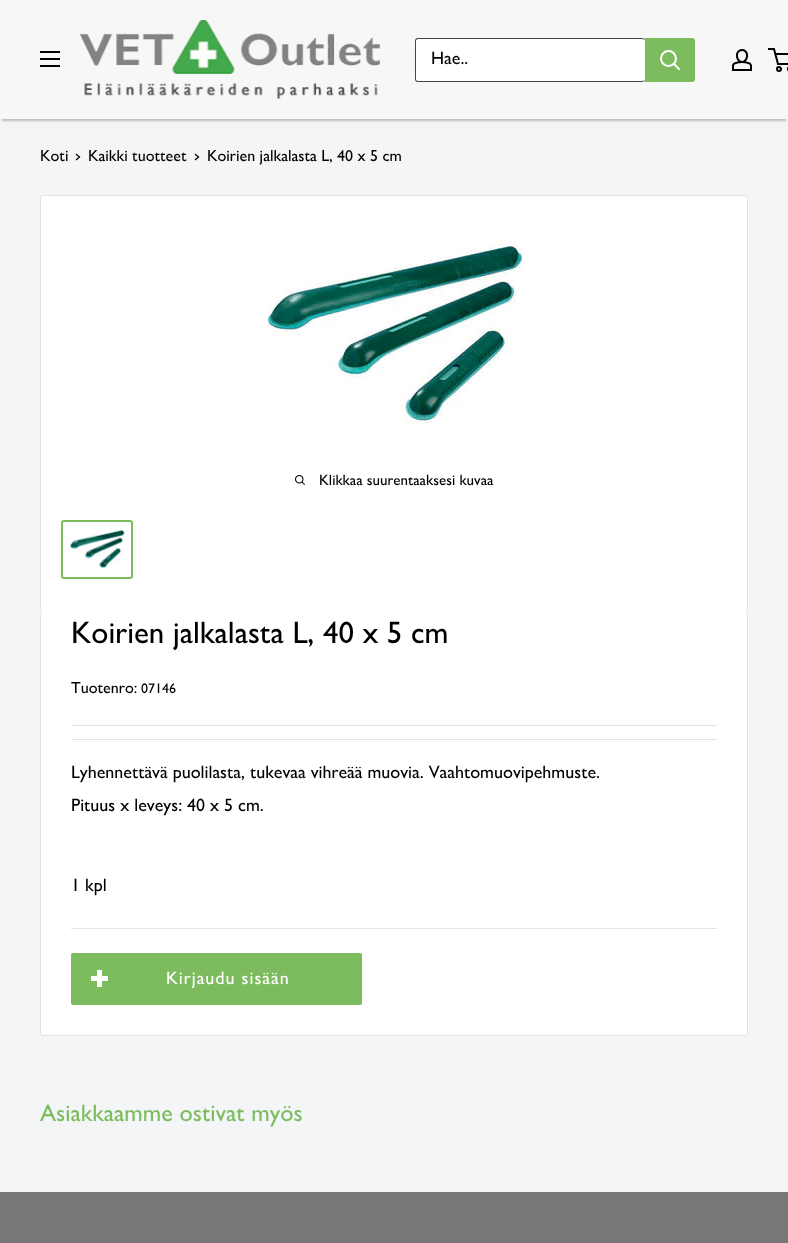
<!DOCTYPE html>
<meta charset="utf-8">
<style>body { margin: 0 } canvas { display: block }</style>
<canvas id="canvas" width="788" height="1243"></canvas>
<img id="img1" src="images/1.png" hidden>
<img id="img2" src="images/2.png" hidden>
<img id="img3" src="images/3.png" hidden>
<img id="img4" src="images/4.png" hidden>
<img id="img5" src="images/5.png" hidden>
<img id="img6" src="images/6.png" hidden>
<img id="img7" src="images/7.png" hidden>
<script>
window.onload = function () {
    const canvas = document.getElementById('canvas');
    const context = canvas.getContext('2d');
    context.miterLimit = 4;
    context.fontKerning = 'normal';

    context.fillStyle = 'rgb(243, 245, 246)';
    context.fillRect(0, 0, 788, 1243);
    context.fillStyle = 'rgb(189, 189, 189)';
    context.filter = 'blur(1px)';
    context.beginPath();
    context.rect(2, 6, 784, 115);
    context.fill();
    context.filter = 'none';
    context.fillStyle = 'rgb(247, 247, 247)';
    context.fillRect(0, 0, 788, 119);
    context.drawImage(document.getElementById('img1'), 40, 51, 20, 16);
    context.drawImage(document.getElementById('img2'), 80, 20, 300, 79);
    context.fillStyle = 'rgb(255, 255, 255)';
    context.beginPath();
    context.roundRect(415, 38, 280, 44, 3);
    context.fill();
    context.fillStyle = 'rgb(68, 68, 68)';
    context.beginPath();
    context.moveTo(418, 38);
    context.lineTo(642, 38);
    context.bezierCurveTo(644, 38, 645, 39, 645, 41);
    context.lineTo(645, 79);
    context.bezierCurveTo(645, 81, 644, 82, 642, 82);
    context.lineTo(418, 82);
    context.bezierCurveTo(416, 82, 415, 81, 415, 79);
    context.lineTo(415, 41);
    context.bezierCurveTo(415, 39, 416, 38, 418, 38);
    context.closePath();
    context.moveTo(418, 39);
    context.lineTo(642, 39);
    context.bezierCurveTo(644, 39, 645, 40, 645, 41);
    context.lineTo(645, 79);
    context.bezierCurveTo(645, 80, 644, 81, 642, 81);
    context.lineTo(418, 81);
    context.bezierCurveTo(417, 81, 416, 80, 416, 79);
    context.lineTo(416, 41);
    context.bezierCurveTo(416, 40, 417, 39, 418, 39);
    context.closePath();
    context.fill('evenodd');
    context.fillStyle = 'rgb(124, 188, 94)';
    context.beginPath();
    context.roundRect(645, 38, 50, 44, [0, 3, 3, 0]);
    context.fill();
    context.beginPath();
    context.moveTo(679, 69);
    context.lineTo(674, 64);
    context.strokeStyle = 'rgb(255, 255, 255)';
    context.lineWidth = 2;
    context.lineCap = 'square';
    context.stroke();
    context.beginPath();
    context.arc(668.5, 58.5, 7.5, 0, 2 * Math.PI);
    context.stroke();
    context.drawImage(document.getElementById('img3'), 732, 49, 20, 22);
    context.beginPath();
    context.arc(779, 69, 2, 0, 2 * Math.PI);
    context.strokeStyle = 'rgb(0, 0, 0)';
    context.stroke();
    context.beginPath();
    context.arc(790, 69, 2, 0, 2 * Math.PI);
    context.stroke();
    context.beginPath();
    context.moveTo(775.5, 54);
    context.lineTo(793.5, 54);
    context.lineTo(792, 64);
    context.lineTo(778, 64);
    context.lineTo(774, 49);
    context.lineTo(768, 49);
    context.lineCap = 'butt';
    context.stroke();
    context.beginPath();
    context.moveTo(76.5, 154.5);
    context.lineTo(79.5, 157);
    context.lineTo(76.5, 159.5);
    context.lineWidth = 1.3;
    context.lineCap = 'square';
    context.stroke();
    context.beginPath();
    context.moveTo(195.5, 154.5);
    context.lineTo(198.5, 157);
    context.lineTo(195.5, 159.5);
    context.stroke();
    context.fillStyle = 'rgb(255, 255, 255)';
    context.beginPath();
    context.roundRect(40.5, 195.5, 707, 416, 2.5);
    context.fill();
    context.strokeStyle = 'rgb(225, 227, 228)';
    context.lineWidth = 1;
    context.stroke();
    context.drawImage(document.getElementById('img4'), 267, 240, 257, 184);
    context.drawImage(document.getElementById('img5'), 295, 475, 10, 10);
    context.beginPath();
    context.roundRect(62, 521, 70, 57, 2);
    context.strokeStyle = 'rgb(124, 188, 94)';
    context.lineWidth = 2;
    context.stroke();
    context.drawImage(document.getElementById('img6'), 69, 529, 56, 40);
    context.beginPath();
    context.moveTo(43, 611);
    context.bezierCurveTo(41, 611, 40, 613, 40, 615);
    context.bezierCurveTo(40, 613, 41, 612, 43, 612);
    context.lineTo(745, 612);
    context.bezierCurveTo(747, 612, 748, 613, 748, 615);
    context.bezierCurveTo(748, 613, 747, 611, 745, 611);
    context.closePath();
    context.fill();
    context.beginPath();
    context.roundRect(40, 612, 708, 424, 3);
    context.fill();
    context.fillStyle = 'rgb(225, 227, 228)';
    context.beginPath();
    context.moveTo(43, 612);
    context.lineTo(745, 612);
    context.bezierCurveTo(747, 612, 748, 613, 748, 615);
    context.lineTo(748, 1033);
    context.bezierCurveTo(748, 1035, 747, 1036, 745, 1036);
    context.lineTo(43, 1036);
    context.bezierCurveTo(41, 1036, 40, 1035, 40, 1033);
    context.lineTo(40, 615);
    context.bezierCurveTo(40, 613, 41, 612, 43, 612);
    context.closePath();
    context.moveTo(43, 612);
    context.lineTo(745, 612);
    context.bezierCurveTo(746, 612, 747, 613, 747, 615);
    context.lineTo(747, 1033);
    context.bezierCurveTo(747, 1034, 746, 1035, 745, 1035);
    context.lineTo(43, 1035);
    context.bezierCurveTo(42, 1035, 41, 1034, 41, 1033);
    context.lineTo(41, 615);
    context.bezierCurveTo(41, 613, 42, 612, 43, 612);
    context.closePath();
    context.fill('evenodd');
    context.fillRect(71, 725, 646, 1);
    context.fillRect(71, 739, 646, 1);
    context.fillRect(71, 928, 646, 1);
    context.fillStyle = 'rgb(124, 188, 94)';
    context.beginPath();
    context.roundRect(71, 953, 291, 52, 2);
    context.fill();
    context.drawImage(document.getElementById('img7'), 91, 970, 17, 17);
    context.fillStyle = 'rgb(119, 119, 119)';
    context.fillRect(0, 1192, 788, 51);
    context.font = '500 18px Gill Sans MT';
    context.fillStyle = 'rgb(0, 0, 0)';
    context.fillText('Hae..', 431, 64);
    context.font = '500 16px Gill Sans MT';
    context.fillText('Koti', 40, 161);
    context.fillText('Kaikki tuotteet', 88, 161);
    context.fillText('Koirien jalkalasta L, 40 x 5 cm', 207, 161);
    context.font = '500 15px Gill Sans MT';
    context.fillText('Klikkaa suurentaaksesi kuvaa', 319, 485);
    context.font = '500 31px Gill Sans MT';
    context.fillText('Koirien jalkalasta L, 40 x 5 cm', 71, 643);
    context.font = '500 16px Gill Sans MT';
    context.fillText('Tuotenro:', 71, 693);
    context.font = '500 14px Gill Sans MT';
    context.fillText('07146', 141, 693);
    context.font = '500 18px Gill Sans MT';
    context.fillText('Lyhennettävä puolilasta, tukevaa vihreää muovia. Vaahtomuovipehmuste.', 71, 778);
    context.fillText('Pituus x leveys: 40 x 5 cm.', 71, 811);
    context.fillText('1 kpl', 71, 891);
    context.letterSpacing = '1px';
    context.fillStyle = 'rgb(255, 255, 255)';
    context.fillText('Kirjaudu sisään', 166, 984);
    context.letterSpacing = '0px';
    context.font = '500 24px Gill Sans MT';
    context.fillStyle = 'rgb(124, 188, 94)';
    context.fillText('Asiakkaamme ostivat myös', 40, 1121);
};
</script>
